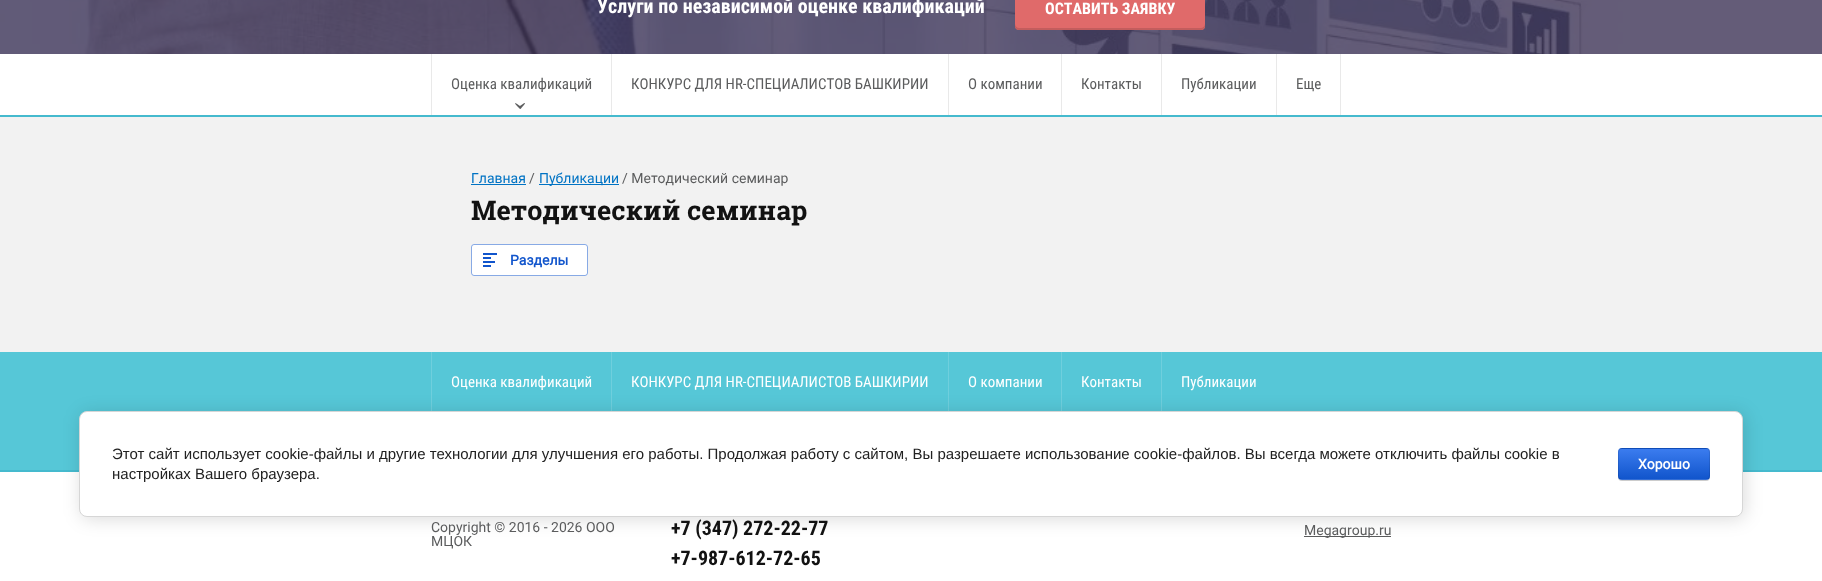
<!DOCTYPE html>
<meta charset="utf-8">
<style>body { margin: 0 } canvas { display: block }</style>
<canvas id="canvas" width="1822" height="581"></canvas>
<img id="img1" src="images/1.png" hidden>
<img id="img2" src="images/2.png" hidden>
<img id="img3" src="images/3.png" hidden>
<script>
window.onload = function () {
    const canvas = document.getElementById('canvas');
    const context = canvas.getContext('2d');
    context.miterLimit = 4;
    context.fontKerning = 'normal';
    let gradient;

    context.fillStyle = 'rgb(242, 242, 242)';
    context.fillRect(0, 0, 1822, 581);
    context.drawImage(document.getElementById('img1'), 0, 0, 1822, 54);
    context.fillStyle = 'rgb(224, 106, 106)';
    context.beginPath();
    context.roundRect(1015, -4, 190, 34, 4);
    context.fill();
    context.fillStyle = 'rgb(195, 93, 93)';
    context.beginPath();
    context.moveTo(1015, 24);
    context.lineTo(1015, 26);
    context.bezierCurveTo(1015, 28, 1017, 30, 1019, 30);
    context.lineTo(1201, 30);
    context.bezierCurveTo(1203, 30, 1205, 28, 1205, 26);
    context.lineTo(1205, 24);
    context.bezierCurveTo(1205, 26, 1203, 28, 1201, 28);
    context.lineTo(1019, 28);
    context.bezierCurveTo(1017, 28, 1015, 26, 1015, 24);
    context.closePath();
    context.fill();
    context.fillStyle = 'rgb(69, 186, 206)';
    context.fillRect(0, 115, 1822, 2);
    context.fillStyle = 'rgb(255, 255, 255)';
    context.fillRect(0, 54, 1822, 61);
    context.fillStyle = 'rgb(233, 233, 233)';
    context.fillRect(431, 54, 1, 61);
    context.drawImage(document.getElementById('img2'), 515, 103, 10, 6);
    context.fillRect(611, 54, 1, 61);
    context.fillRect(948, 54, 1, 61);
    context.fillRect(1061, 54, 1, 61);
    context.fillRect(1161, 54, 1, 61);
    context.fillRect(1340, 54, 1, 61);
    context.fillRect(1276, 54, 1, 61);
    context.fillStyle = 'rgb(0, 115, 196)';
    context.fillRect(471, 184, 55, 1);
    context.fillRect(539, 184, 80, 1);
    context.fillStyle = 'rgb(255, 255, 255)';
    context.beginPath();
    context.roundRect(471, 244, 117, 32, 3);
    context.fill();
    context.beginPath();
    context.roundRect(471.5, 244.5, 116, 31, 2.5);
    context.strokeStyle = 'rgba(17, 85, 204, 0.5)';
    context.stroke();
    context.drawImage(document.getElementById('img3'), 483, 253, 14, 14);
    context.fillRect(0, 472, 1822, 109);
    context.fillStyle = 'rgb(86, 199, 215)';
    context.fillRect(0, 352, 1822, 118);
    context.fillStyle = 'rgb(69, 186, 206)';
    context.fillRect(0, 470, 1822, 2);
    context.fillStyle = 'rgb(111, 207, 221)';
    context.fillRect(431, 352, 1, 60);
    context.fillRect(611, 352, 1, 60);
    context.fillRect(948, 352, 1, 60);
    context.fillRect(1061, 352, 1, 60);
    context.fillRect(1161, 352, 1, 60);
    context.fillStyle = 'rgb(91, 92, 93)';
    context.fillRect(1304, 536, 87, 1);
    context.fillStyle = 'rgba(0, 0, 0, 0.14)';
    context.filter = 'blur(9px)';
    context.beginPath();
    context.roundRect(81, 413, 1664, 106, 8);
    context.fill();
    context.filter = 'none';
    context.fillStyle = 'rgb(255, 255, 255)';
    context.beginPath();
    context.roundRect(79.5, 411.5, 1663, 105, 7.5);
    context.fill();
    context.strokeStyle = 'rgb(214, 214, 214)';
    context.stroke();
    context.fillStyle = 'rgba(0, 0, 0, 0.2)';
    context.filter = 'blur(0.5px)';
    context.beginPath();
    context.roundRect(1618, 449, 92, 32, 4);
    context.fill();
    context.filter = 'none';
    context.save();
    context.beginPath();
    context.roundRect(1618, 448, 92, 32, 4);
    context.clip();
    gradient = context.createLinearGradient(1664, 419, 1664, 449);
    gradient.addColorStop(0, 'rgb(59, 124, 239)');
    gradient.addColorStop(1, 'rgb(17, 85, 204)');
    context.fillStyle = gradient;
    context.fillRect(1618, 448, 92, 1);
    gradient = context.createLinearGradient(1664, 449, 1664, 479);
    gradient.addColorStop(0, 'rgb(59, 124, 239)');
    gradient.addColorStop(1, 'rgb(17, 85, 204)');
    context.fillStyle = gradient;
    context.fillRect(1618, 449, 92, 30);
    gradient = context.createLinearGradient(1664, 479, 1664, 509);
    gradient.addColorStop(0, 'rgb(59, 124, 239)');
    gradient.addColorStop(1, 'rgb(17, 85, 204)');
    context.fillStyle = gradient;
    context.fillRect(1618, 479, 92, 1);
    context.restore();
    context.beginPath();
    context.roundRect(1618.5, 448.5, 91, 31, 3.5);
    context.strokeStyle = 'rgba(0, 0, 0, 0.1)';
    context.stroke();
    context.font = 'bold 20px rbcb';
    context.fillStyle = 'rgb(255, 255, 255)';
    context.fillText('Услуги по независимой оценке квалификаций', 597, 13);
    context.font = 'bold 16px rbcb';
    context.fillText('ОСТАВИТЬ ЗАЯВКУ', 1045, 14);
    context.font = '15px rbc';
    context.fillStyle = 'rgb(91, 92, 93)';
    context.fillText('Оценка квалификаций', 451, 89);
    context.fillText('КОНКУРС ДЛЯ HR-СПЕЦИАЛИСТОВ БАШКИРИИ', 631, 89);
    context.fillText('О компании', 968, 89);
    context.fillText('Контакты', 1081, 89);
    context.fillText('Публикации', 1181, 89);
    context.fillText('Еще', 1296, 89);
    context.font = '14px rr';
    context.fillStyle = 'rgb(0, 115, 196)';
    context.fillText('Главная', 471, 183);
    context.fillStyle = 'rgb(91, 92, 93)';
    context.fillText('/', 529, 183);
    context.fillStyle = 'rgb(0, 115, 196)';
    context.fillText('Публикации', 539, 183);
    context.fillStyle = 'rgb(91, 92, 93)';
    context.fillText('/ Методический семинар', 622, 183);
    context.font = 'bold 27px Roboto Slab';
    context.fillStyle = 'rgb(18, 18, 18)';
    context.fillText('Методический семинар', 471, 220);
    context.font = 'bold 14px rr';
    context.fillStyle = 'rgb(17, 85, 204)';
    context.fillText('Разделы', 510, 265);
    context.font = '15px rbc';
    context.fillStyle = 'rgb(255, 255, 255)';
    context.fillText('Оценка квалификаций', 451, 387);
    context.fillText('КОНКУРС ДЛЯ HR-СПЕЦИАЛИСТОВ БАШКИРИИ', 631, 387);
    context.fillText('О компании', 968, 387);
    context.fillText('Контакты', 1081, 387);
    context.fillText('Публикации', 1181, 387);
    context.font = '14px rr';
    context.fillStyle = 'rgb(91, 92, 93)';
    context.fillText('Copyright © 2016 - 2026 ООО', 431, 532);
    context.fillText('МЦОК', 431, 546);
    context.font = 'bold 20px rbcb';
    context.fillStyle = 'rgb(18, 18, 18)';
    context.fillText('+7 (347) 272‒22‒77', 671, 535);
    context.fillText('+7-987-612-72-65', 671, 565);
    context.font = '14px rr';
    context.fillStyle = 'rgb(91, 92, 93)';
    context.fillText('Megagroup.ru', 1304, 535);
    context.font = '15px Liberation Sans';
    context.fillStyle = 'rgb(33, 33, 33)';
    context.fillText('Этот сайт использует cookie-файлы и другие технологии для улучшения его работы. Продолжая работу с сайтом, Вы разрешаете использование cookie-файлов. Вы всегда можете отключить файлы cookie в', 112, 459);
    context.fillText('настройках Вашего браузера.', 112, 479);
    context.font = 'bold 14px rr';
    context.fillStyle = 'rgb(255, 255, 255)';
    context.fillText('Хорошо', 1638, 469);
};
</script>
